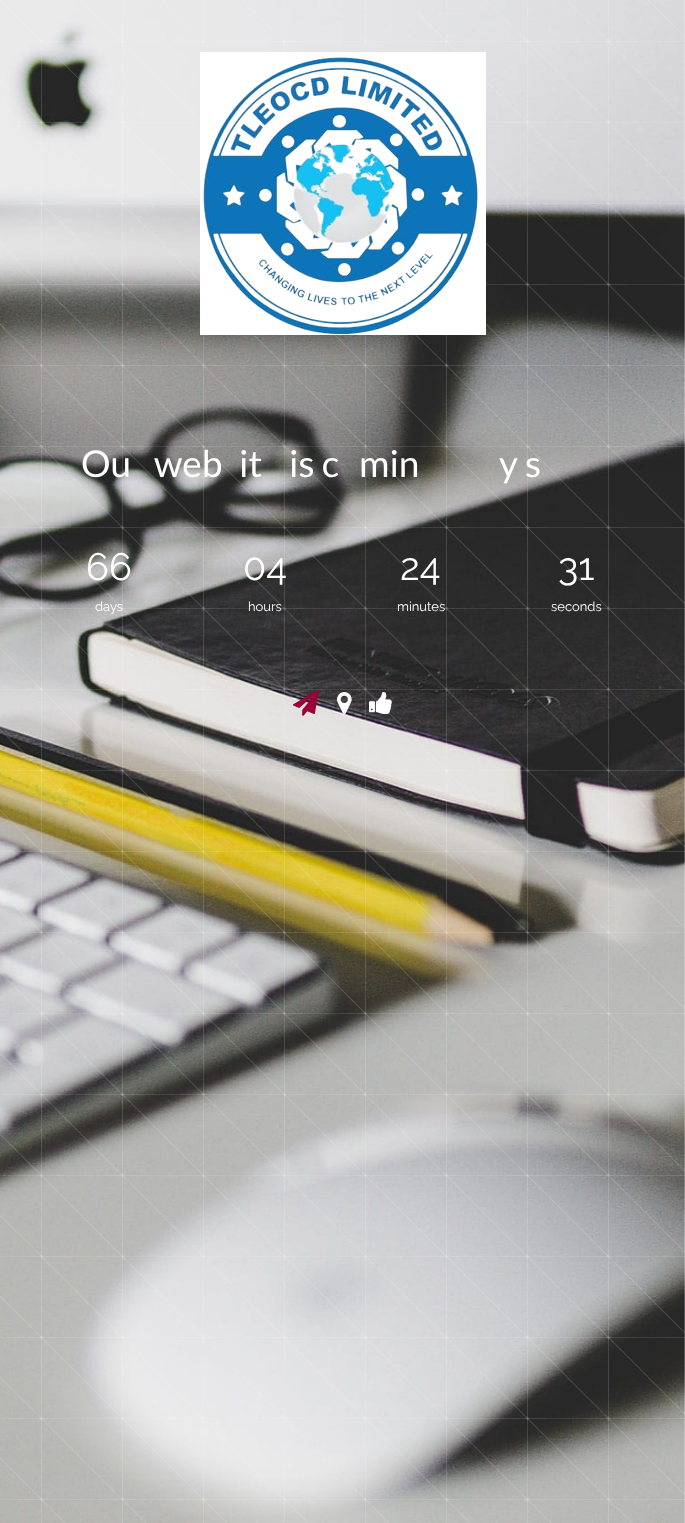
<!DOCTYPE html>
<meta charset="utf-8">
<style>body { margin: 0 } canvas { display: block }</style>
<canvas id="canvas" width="685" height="1523"></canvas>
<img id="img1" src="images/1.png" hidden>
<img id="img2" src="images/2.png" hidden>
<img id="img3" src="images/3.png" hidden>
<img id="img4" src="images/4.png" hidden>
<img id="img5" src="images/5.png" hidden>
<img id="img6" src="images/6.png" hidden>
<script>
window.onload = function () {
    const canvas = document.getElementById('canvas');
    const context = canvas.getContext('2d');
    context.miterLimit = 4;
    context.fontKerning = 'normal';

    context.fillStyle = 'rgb(255, 255, 255)';
    context.fillRect(0, 0, 685, 1523);
    context.drawImage(document.getElementById('img1'), 0, 0, 685, 1523);
    context.drawImage(document.getElementById('img2'), 0, 0, 685, 1523);
    context.drawImage(document.getElementById('img3'), 200, 52, 286, 283);
    context.drawImage(document.getElementById('img4'), 293, 690, 26, 26);
    context.drawImage(document.getElementById('img5'), 337, 692, 15, 22);
    context.drawImage(document.getElementById('img6'), 369, 692, 23, 22);
    context.font = '37px Lato';
    context.fillText('Ou', 81, 477);
    context.fillText('web', 154, 477);
    context.fillText('it', 239, 477);
    context.fillText('is c', 289, 477);
    context.fillText('min', 359, 477);
    context.fillText('y s', 499, 477);
    context.font = '100 38px Raleway';
    context.fillText('66', 86, 580);
    context.font = '100 13px Raleway';
    context.fillText('days', 95, 611);
    context.font = '100 38px Raleway';
    context.fillText('04', 243, 580);
    context.font = '100 13px Raleway';
    context.fillText('hours', 248, 611);
    context.font = '100 38px Raleway';
    context.fillText('24', 400, 580);
    context.font = '100 13px Raleway';
    context.fillText('minutes', 397, 611);
    context.font = '100 38px Raleway';
    context.fillText('31', 558, 580);
    context.font = '100 13px Raleway';
    context.fillText('seconds', 551, 611);
};
</script>
